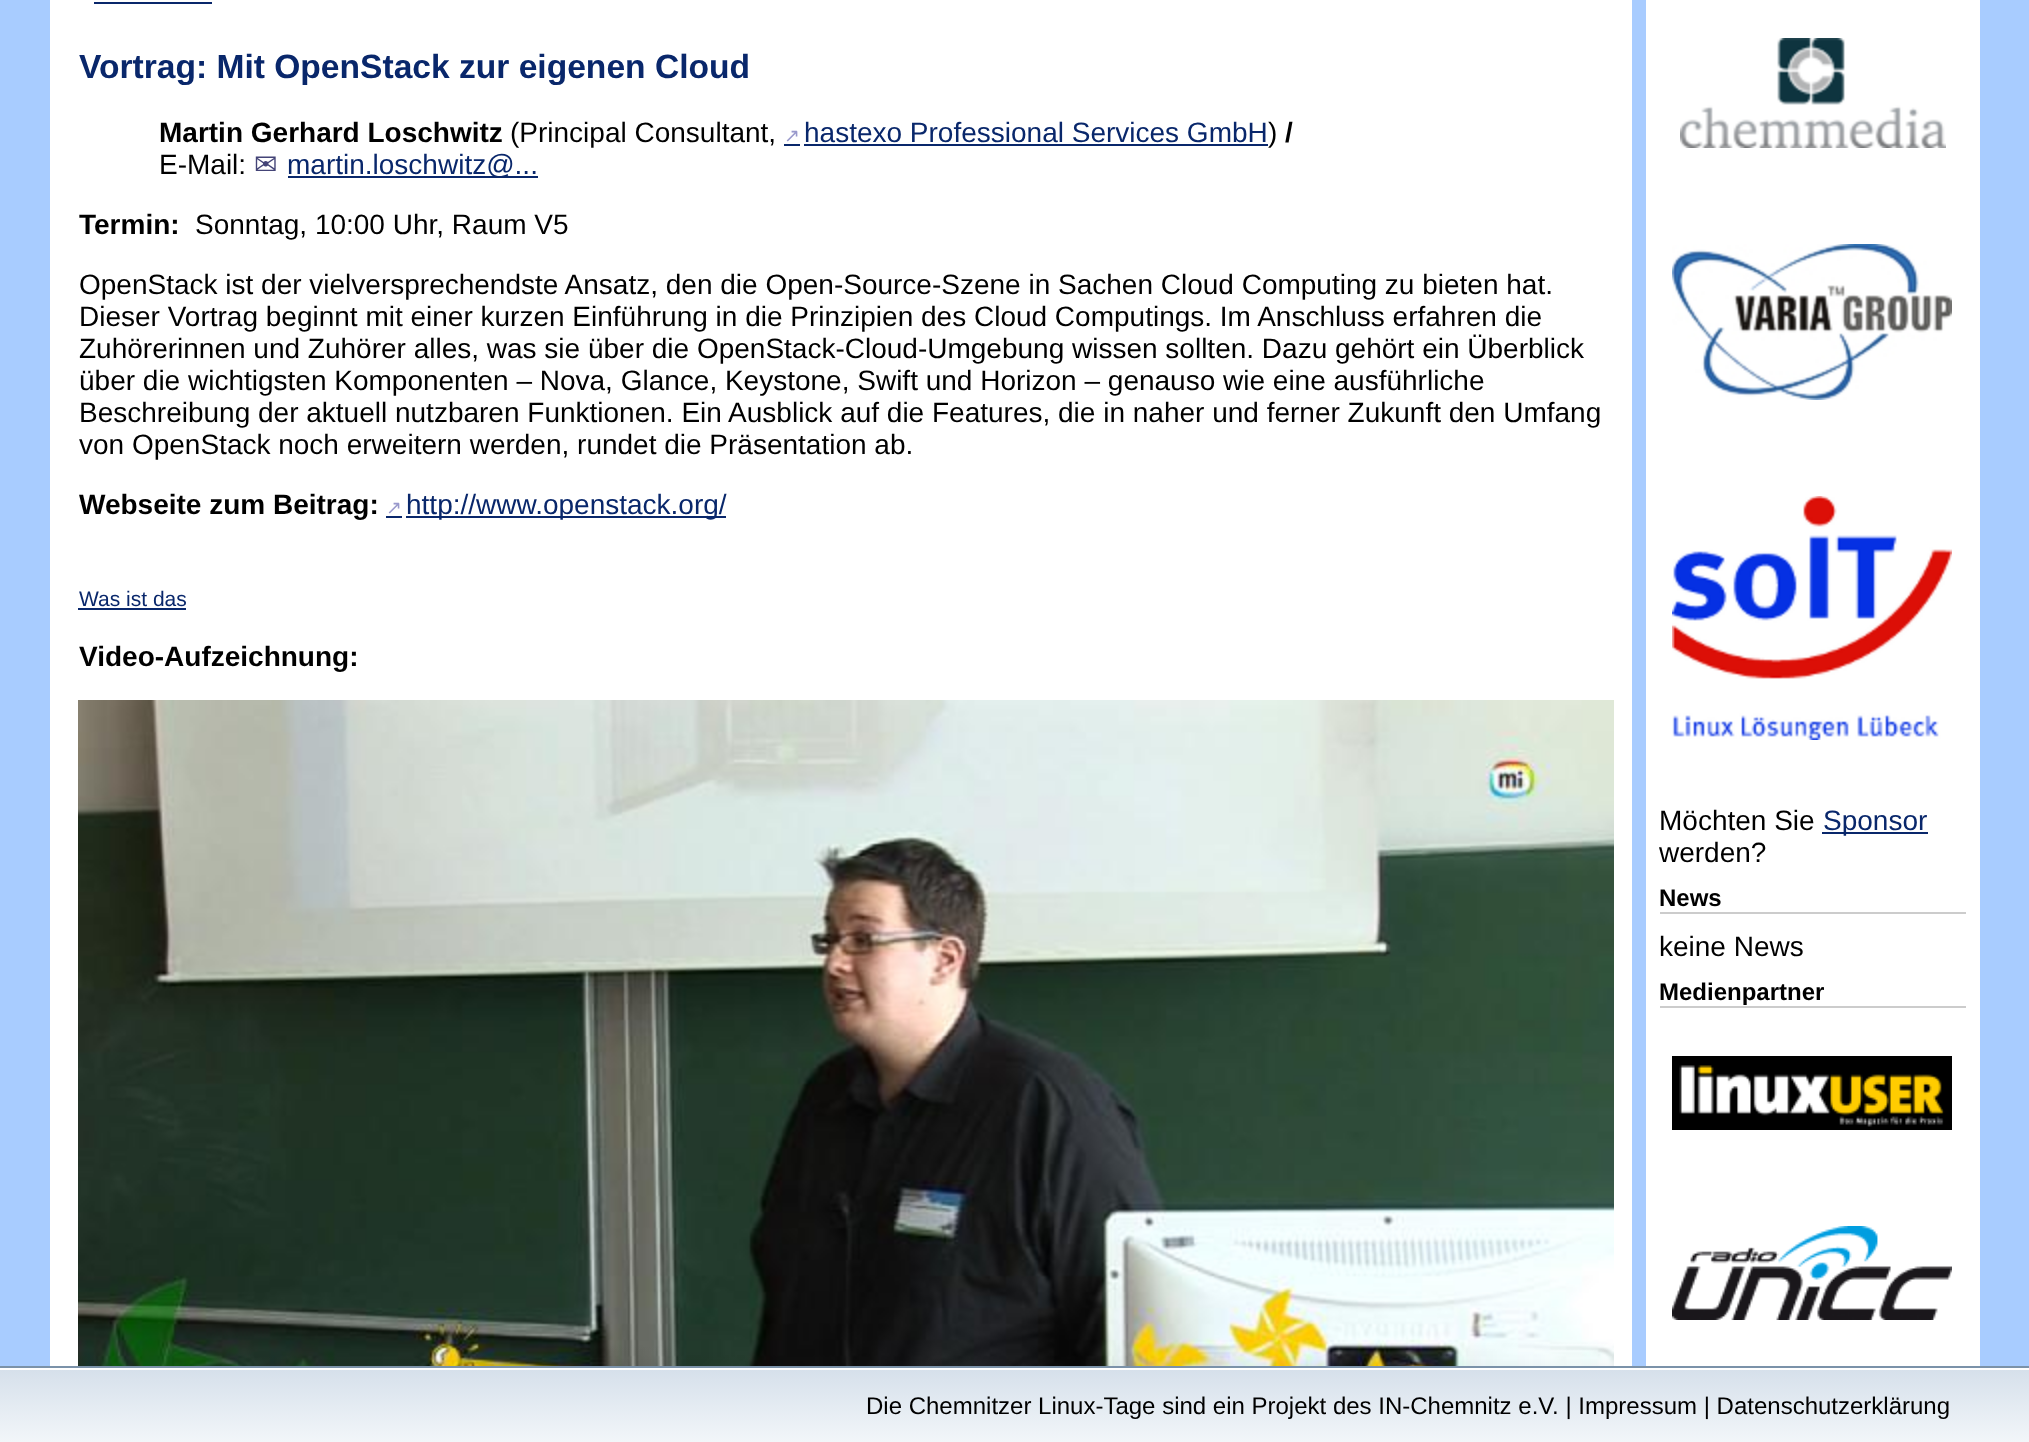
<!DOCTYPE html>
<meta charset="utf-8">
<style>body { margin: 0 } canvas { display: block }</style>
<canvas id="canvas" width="2029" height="1442"></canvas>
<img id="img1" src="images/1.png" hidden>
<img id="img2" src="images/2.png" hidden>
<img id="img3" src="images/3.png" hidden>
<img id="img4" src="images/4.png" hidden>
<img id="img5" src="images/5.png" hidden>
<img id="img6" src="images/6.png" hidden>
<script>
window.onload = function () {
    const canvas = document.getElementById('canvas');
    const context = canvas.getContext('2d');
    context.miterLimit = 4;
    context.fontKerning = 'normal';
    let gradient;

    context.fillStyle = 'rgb(168, 204, 255)';
    context.fillRect(0, 0, 2029, 1442);
    context.fillStyle = 'rgb(255, 255, 255)';
    context.fillRect(50, 0, 1582, 1366);
    context.fillStyle = 'rgb(9, 39, 107)';
    context.fillRect(94, 2, 118, 2);
    context.fillRect(784, 144, 16, 2);
    context.fillRect(804, 144, 464, 2);
    context.fillRect(288, 176, 250, 2);
    context.fillRect(386, 516, 16, 2);
    context.fillRect(406, 516, 320, 2);
    context.fillRect(78, 608, 108, 2);
    context.drawImage(document.getElementById('img1'), 78, 700, 1536, 666);
    context.fillStyle = 'rgb(255, 255, 255)';
    context.fillRect(1646, 0, 334, 1366);
    context.drawImage(document.getElementById('img2'), 1680, 38, 266, 110);
    context.drawImage(document.getElementById('img3'), 1672, 244, 280, 156);
    context.drawImage(document.getElementById('img4'), 1672, 496, 280, 244);
    context.fillStyle = 'rgb(9, 39, 107)';
    context.fillRect(1822, 832, 106, 2);
    context.fillStyle = 'rgb(204, 204, 204)';
    context.fillRect(1660, 912, 306, 2);
    context.fillRect(1660, 1006, 306, 2);
    context.drawImage(document.getElementById('img5'), 1672, 1056, 280, 74);
    context.drawImage(document.getElementById('img6'), 1672, 1226, 280, 94);
    gradient = context.createLinearGradient(1015, 1370, 1015, 1442);
    gradient.addColorStop(0, 'rgb(214, 224, 235)');
    gradient.addColorStop(1, 'rgb(242, 246, 249)');
    context.fillStyle = gradient;
    context.fillRect(0, 1370, 2029, 72);
    context.fillStyle = 'rgb(255, 255, 255)';
    context.fillRect(0, 1368, 2029, 2);
    context.strokeStyle = 'rgb(123, 146, 169)';
    context.lineWidth = 2;
    context.strokeRect(-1, 1367, 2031, 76);
    context.font = 'bold 33.6px Liberation Sans';
    context.fillStyle = 'rgb(9, 39, 107)';
    context.fillText('Vortrag: Mit OpenStack zur eigenen Cloud', 79, 78);
    context.font = 'bold 28px Liberation Sans';
    context.fillStyle = 'rgb(0, 0, 0)';
    context.fillText('Martin Gerhard Loschwitz', 159, 142);
    context.font = '28px Liberation Sans';
    context.fillText('(Principal Consultant,', 510, 142);
    context.font = '19px DejaVu Sans';
    context.fillStyle = 'rgb(153, 153, 204)';
    context.fillText('↗', 784, 142);
    context.font = '28px Liberation Sans';
    context.fillStyle = 'rgb(9, 39, 107)';
    context.fillText('hastexo Professional Services GmbH', 804, 142);
    context.fillStyle = 'rgb(0, 0, 0)';
    context.fillText(')', 1268, 142);
    context.font = 'bold 28px Liberation Sans';
    context.fillText('/', 1285, 142);
    context.font = '28px Liberation Sans';
    context.fillText('E-Mail:', 159, 174);
    context.font = '28px DejaVu Sans';
    context.fillStyle = 'rgb(68, 68, 119)';
    context.fillText('✉', 254, 174);
    context.font = '28px Liberation Sans';
    context.fillStyle = 'rgb(9, 39, 107)';
    context.fillText('martin.loschwitz@...', 287, 174);
    context.font = 'bold 28px Liberation Sans';
    context.fillStyle = 'rgb(0, 0, 0)';
    context.fillText('Termin:', 79, 234);
    context.font = '28px Liberation Sans';
    context.fillText('Sonntag, 10:00 Uhr, Raum V5', 195, 234);
    context.fillText('OpenStack ist der vielversprechendste Ansatz, den die Open-Source-Szene in Sachen Cloud Computing zu bieten hat.', 79, 294);
    context.fillText('Dieser Vortrag beginnt mit einer kurzen Einführung in die Prinzipien des Cloud Computings. Im Anschluss erfahren die', 79, 326);
    context.fillText('Zuhörerinnen und Zuhörer alles, was sie über die OpenStack-Cloud-Umgebung wissen sollten. Dazu gehört ein Überblick', 79, 358);
    context.fillText('über die wichtigsten Komponenten – Nova, Glance, Keystone, Swift und Horizon – genauso wie eine ausführliche', 79, 390);
    context.fillText('Beschreibung der aktuell nutzbaren Funktionen. Ein Ausblick auf die Features, die in naher und ferner Zukunft den Umfang', 79, 422);
    context.fillText('von OpenStack noch erweitern werden, rundet die Präsentation ab.', 79, 454);
    context.font = 'bold 28px Liberation Sans';
    context.fillText('Webseite zum Beitrag:', 79, 514);
    context.font = '19px DejaVu Sans';
    context.fillStyle = 'rgb(153, 153, 204)';
    context.fillText('↗', 386, 514);
    context.font = '28px Liberation Sans';
    context.fillStyle = 'rgb(9, 39, 107)';
    context.fillText('http://www.openstack.org/', 406, 514);
    context.font = '21px Liberation Sans';
    context.fillText('Was ist das', 79, 606);
    context.font = 'bold 28px Liberation Sans';
    context.fillStyle = 'rgb(0, 0, 0)';
    context.fillText('Video-Aufzeichnung:', 79, 666);
    context.font = '28px Liberation Sans';
    context.fillText('Möchten Sie', 1659, 830);
    context.fillStyle = 'rgb(9, 39, 107)';
    context.fillText('Sponsor', 1823, 830);
    context.fillStyle = 'rgb(0, 0, 0)';
    context.fillText('werden?', 1659, 862);
    context.font = 'bold 24px Liberation Sans';
    context.fillText('News', 1659, 906);
    context.font = '28px Liberation Sans';
    context.fillText('keine News', 1659, 956);
    context.font = 'bold 24px Liberation Sans';
    context.fillText('Medienpartner', 1659, 1000);
    context.font = '24px Liberation Sans';
    context.fillText('Die Chemnitzer Linux-Tage sind ein Projekt des IN-Chemnitz e.V. | Impressum | Datenschutzerklärung', 866, 1414);
};
</script>
